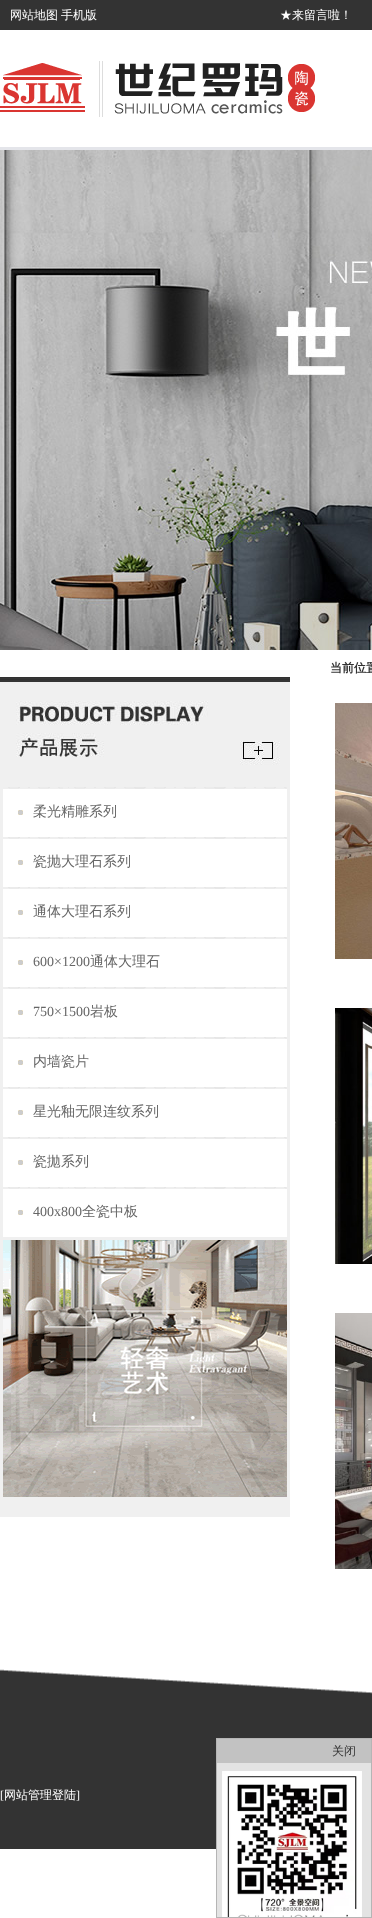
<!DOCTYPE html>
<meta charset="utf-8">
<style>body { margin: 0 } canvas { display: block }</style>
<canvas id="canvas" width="372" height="1918"></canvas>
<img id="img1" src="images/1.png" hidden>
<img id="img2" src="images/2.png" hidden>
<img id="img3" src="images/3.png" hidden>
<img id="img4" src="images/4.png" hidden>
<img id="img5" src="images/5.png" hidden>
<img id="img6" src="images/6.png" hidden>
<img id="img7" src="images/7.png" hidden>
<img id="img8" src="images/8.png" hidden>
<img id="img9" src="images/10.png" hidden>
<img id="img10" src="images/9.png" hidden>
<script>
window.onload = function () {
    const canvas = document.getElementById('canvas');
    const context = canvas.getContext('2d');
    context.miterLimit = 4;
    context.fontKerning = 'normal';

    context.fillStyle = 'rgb(255, 255, 255)';
    context.fillRect(0, 0, 372, 1918);
    context.fillStyle = 'rgb(51, 51, 51)';
    context.fillRect(0, 0, 372, 30);
    context.fillStyle = 'rgb(228, 229, 234)';
    context.fillRect(0, 147, 372, 3);
    context.drawImage(document.getElementById('img1'), 0, 61, 315, 56);
    context.drawImage(document.getElementById('img2'), 0, 150, 372, 500);
    context.drawImage(document.getElementById('img3'), 335, 703, 37, 256);
    context.drawImage(document.getElementById('img4'), 335, 1008, 37, 256);
    context.drawImage(document.getElementById('img5'), 335, 1313, 37, 256);
    context.fillStyle = 'rgb(240, 240, 240)';
    context.fillRect(0, 765, 290, 752);
    context.drawImage(document.getElementById('img6'), 0, 653, 290, 112);
    context.drawImage(document.getElementById('img7'), 3, 787, 284, 50);
    context.drawImage(document.getElementById('img7'), 3, 837, 284, 50);
    context.drawImage(document.getElementById('img7'), 3, 887, 284, 50);
    context.drawImage(document.getElementById('img7'), 3, 937, 284, 50);
    context.drawImage(document.getElementById('img7'), 3, 987, 284, 50);
    context.drawImage(document.getElementById('img7'), 3, 1037, 284, 50);
    context.drawImage(document.getElementById('img7'), 3, 1087, 284, 50);
    context.drawImage(document.getElementById('img7'), 3, 1137, 284, 50);
    context.drawImage(document.getElementById('img7'), 3, 1187, 284, 50);
    context.drawImage(document.getElementById('img8'), 3, 1240, 284, 257);
    context.drawImage(document.getElementById('img9'), 0, 1669, 372, 180);
    context.strokeStyle = 'rgb(181, 181, 181)';
    context.strokeRect(216.5, 1738.5, 155, 179);
    context.fillStyle = 'rgb(194, 194, 194)';
    context.fillRect(217, 1739, 154, 24);
    context.fillStyle = 'rgb(227, 227, 227)';
    context.fillRect(217, 1763, 154, 154);
    context.drawImage(document.getElementById('img10'), 222, 1771, 140, 146);
    context.font = '500 12px WenQuanYi Zen Hei';
    context.fillStyle = 'rgb(255, 255, 255)';
    context.fillText('网站地图', 10, 19);
    context.fillText('手机版', 61, 19);
    context.fillText('★来留言啦！', 280, 19);
    context.font = 'bold 12px WenQuanYi Zen Hei';
    context.fillStyle = 'rgb(51, 51, 51)';
    context.fillText('当前位置', 330, 672);
    context.font = '500 14px WenQuanYi Zen Hei';
    context.fillStyle = 'rgb(102, 102, 102)';
    context.fillText('柔光精雕系列', 33, 816);
    context.fillText('瓷抛大理石系列', 33, 866);
    context.fillText('通体大理石系列', 33, 916);
    context.font = '14px Liberation Serif';
    context.fillText('600×1200', 33, 966);
    context.font = '500 14px WenQuanYi Zen Hei';
    context.fillText('通体大理石', 90, 966);
    context.font = '14px Liberation Serif';
    context.fillText('750×1500', 33, 1016);
    context.font = '500 14px WenQuanYi Zen Hei';
    context.fillText('岩板', 90, 1016);
    context.fillText('内墙瓷片', 33, 1066);
    context.fillText('星光釉无限连纹系列', 33, 1116);
    context.fillText('瓷拋系列', 33, 1166);
    context.font = '14px Liberation Serif';
    context.fillText('400x800', 33, 1216);
    context.font = '500 14px WenQuanYi Zen Hei';
    context.fillText('全瓷中板', 82, 1216);
    context.font = '500 12px WenQuanYi Zen Hei';
    context.fillStyle = 'rgb(51, 51, 51)';
    context.fillText('关闭', 332, 1755);
    context.font = '12px Liberation Serif';
    context.fillStyle = 'rgb(255, 255, 255)';
    context.fillText('[', 0, 1799);
    context.font = '500 12px WenQuanYi Zen Hei';
    context.fillText('网站管理登陆', 4, 1799);
    context.font = '12px Liberation Serif';
    context.fillText(']', 76, 1799);
};
</script>
